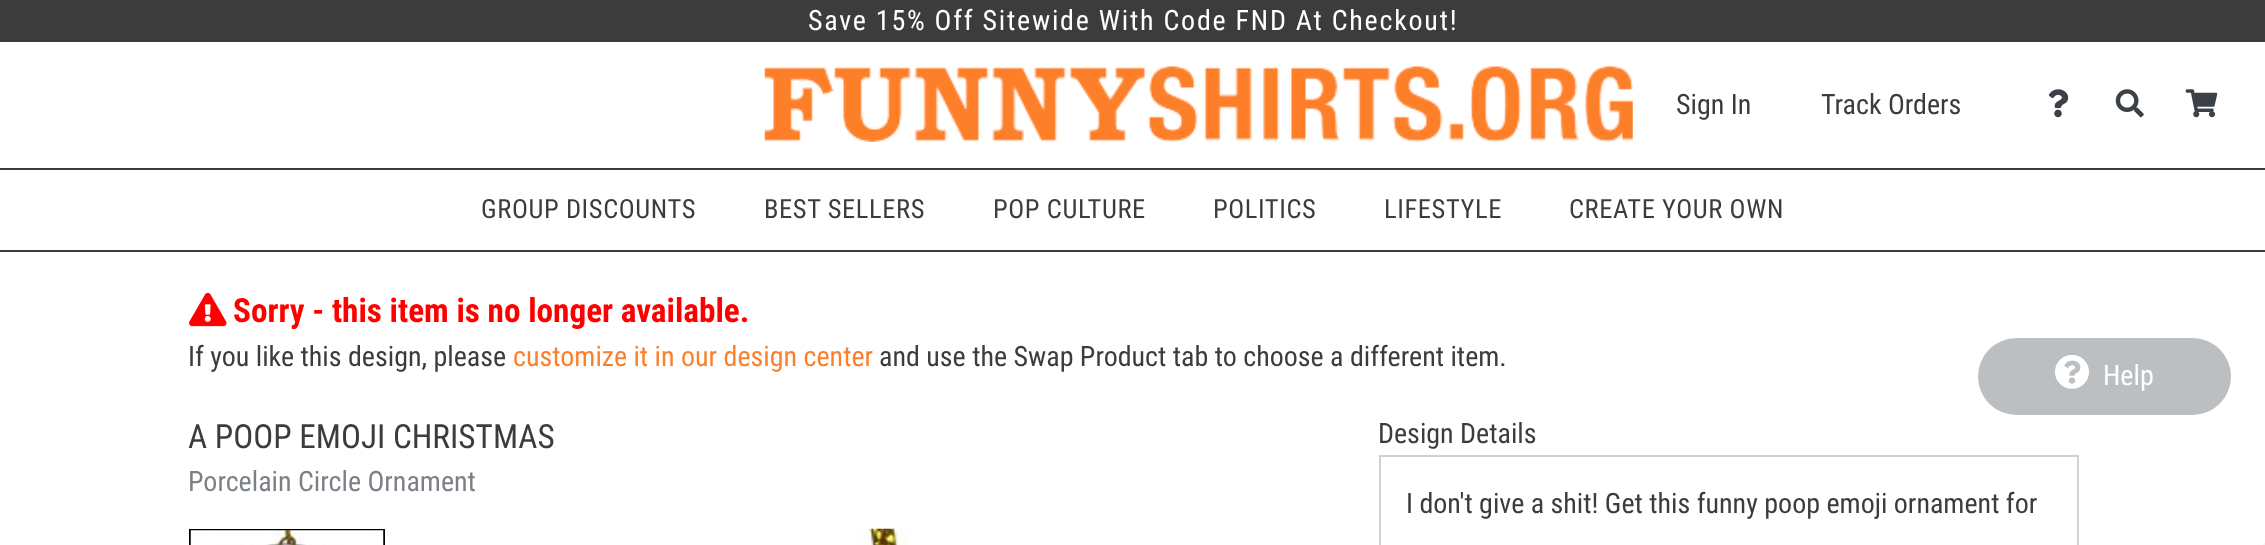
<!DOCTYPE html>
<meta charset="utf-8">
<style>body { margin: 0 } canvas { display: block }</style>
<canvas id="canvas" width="2265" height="545"></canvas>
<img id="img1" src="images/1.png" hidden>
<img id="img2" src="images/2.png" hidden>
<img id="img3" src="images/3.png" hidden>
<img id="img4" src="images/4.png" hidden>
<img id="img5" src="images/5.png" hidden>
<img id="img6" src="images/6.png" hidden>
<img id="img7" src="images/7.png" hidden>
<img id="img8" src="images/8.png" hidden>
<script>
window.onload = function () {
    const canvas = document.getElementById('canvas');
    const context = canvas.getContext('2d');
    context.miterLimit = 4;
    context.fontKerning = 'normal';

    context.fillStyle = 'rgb(255, 255, 255)';
    context.fillRect(0, 0, 2265, 545);
    context.fillStyle = 'rgb(60, 60, 60)';
    context.fillRect(0, 0, 2265, 42);
    context.fillRect(0, 168, 2265, 2);
    context.drawImage(document.getElementById('img1'), 764, 66, 869, 76);
    context.drawImage(document.getElementById('img2'), 2048, 89, 21, 29);
    context.drawImage(document.getElementById('img3'), 2115, 89, 29, 29);
    context.drawImage(document.getElementById('img4'), 2185, 89, 33, 29);
    context.fillRect(0, 250, 2265, 2);
    context.drawImage(document.getElementById('img5'), 189, 292, 38, 35);
    context.strokeStyle = 'rgb(0, 0, 0)';
    context.lineWidth = 2;
    context.strokeRect(190, 530, 194, 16);
    context.drawImage(document.getElementById('img6'), 190, 530, 194, 15);
    context.drawImage(document.getElementById('img7'), 856, 528, 52, 17);
    context.strokeStyle = 'rgb(207, 209, 212)';
    context.strokeRect(1380, 456, 698, 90);
    context.fillStyle = 'rgb(188, 191, 194)';
    context.beginPath();
    context.roundRect(1978, 338, 253, 77, 38.5);
    context.fill();
    context.drawImage(document.getElementById('img8'), 2055, 354, 34, 35);
    context.fillStyle = 'rgb(245, 245, 245)';
    context.fillRect(2263, 543, 2, 2);
    context.letterSpacing = '1.75px';
    context.font = '28px Roboto Condensed';
    context.fillStyle = 'rgb(255, 255, 255)';
    context.fillText('Save 15% Off Sitewide With Code FND At Checkout!', 808, 30);
    context.letterSpacing = '0px';
    context.fillStyle = 'rgb(60, 60, 60)';
    context.fillText('Sign In', 1676, 114);
    context.fillText('Track Orders', 1821, 114);
    context.letterSpacing = '0.6px';
    context.font = '26.5px Roboto Condensed';
    context.fillText('GROUP DISCOUNTS', 481, 218);
    context.fillText('BEST SELLERS', 764, 218);
    context.fillText('POP CULTURE', 993, 218);
    context.fillText('POLITICS', 1213, 218);
    context.fillText('LIFESTYLE', 1384, 218);
    context.fillText('CREATE YOUR OWN', 1569, 218);
    context.letterSpacing = '0px';
    context.font = 'bold 33.25px Roboto Condensed';
    context.fillStyle = 'rgb(255, 0, 0)';
    context.fillText('Sorry - this item is no longer available.', 233, 322);
    context.font = '28px Roboto Condensed';
    context.fillStyle = 'rgb(60, 60, 60)';
    context.fillText('If you like this design, please', 188, 366);
    context.fillStyle = 'rgb(254, 127, 42)';
    context.fillText('customize it in our design center', 513, 366);
    context.fillStyle = 'rgb(60, 60, 60)';
    context.fillText('and use the Swap Product tab to choose a different item.', 879, 366);
    context.font = '33.25px Roboto Condensed';
    context.fillText('A POOP EMOJI CHRISTMAS', 188, 448);
    context.font = '28px Roboto Condensed';
    context.fillStyle = 'rgb(124, 129, 136)';
    context.fillText('Porcelain Circle Ornament', 188, 491);
    context.fillStyle = 'rgb(60, 60, 60)';
    context.fillText('Design Details', 1378, 443);
    context.fillText('I don\'t give a shit! Get this funny poop emoji ornament for', 1406, 513);
    context.fillStyle = 'rgb(255, 255, 255)';
    context.fillText('Help', 2103, 385);
};
</script>
